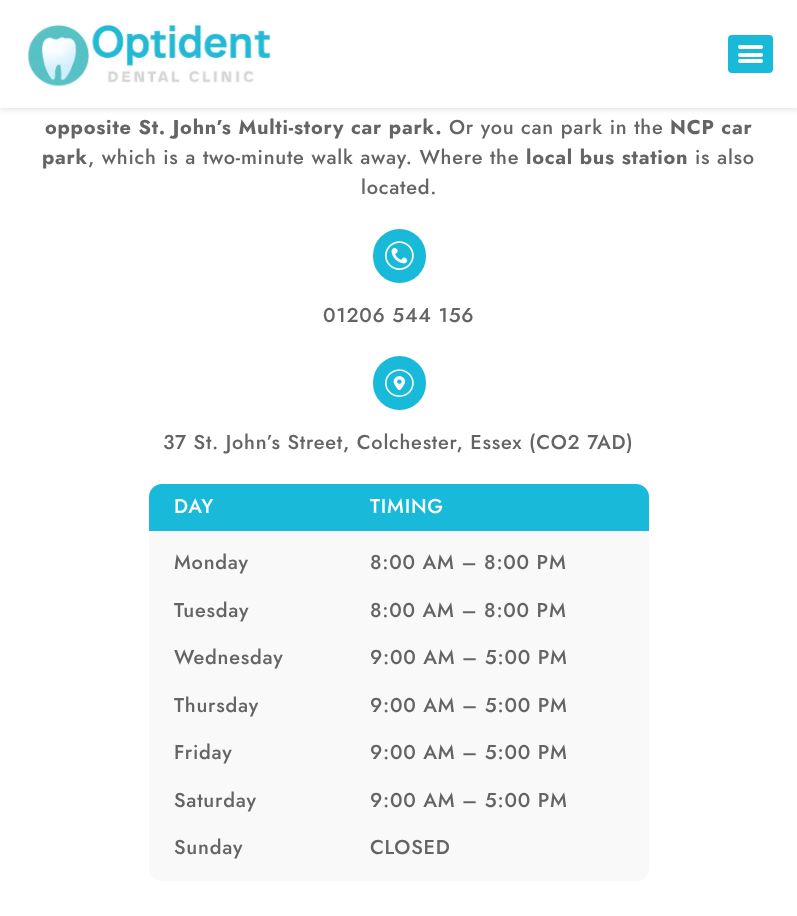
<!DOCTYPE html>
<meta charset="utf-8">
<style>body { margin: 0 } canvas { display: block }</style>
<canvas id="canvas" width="797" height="916"></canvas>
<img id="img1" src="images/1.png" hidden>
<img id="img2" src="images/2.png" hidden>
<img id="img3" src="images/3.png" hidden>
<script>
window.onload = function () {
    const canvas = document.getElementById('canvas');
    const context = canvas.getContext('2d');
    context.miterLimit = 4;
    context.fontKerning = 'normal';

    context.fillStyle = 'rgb(255, 255, 255)';
    context.fillRect(0, 0, 797, 916);
    context.fillStyle = 'rgba(0, 0, 0, 0.1)';
    context.filter = 'blur(2.5px)';
    context.beginPath();
    context.rect(0, 3, 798, 107);
    context.fill();
    context.filter = 'none';
    context.fillStyle = 'rgb(255, 255, 255)';
    context.fillRect(0, 0, 797, 108);
    context.drawImage(document.getElementById('img1'), 27, 22, 244, 65);
    context.fillStyle = 'rgb(25, 186, 217)';
    context.beginPath();
    context.roundRect(728, 35, 45, 38, 4);
    context.fill();
    context.fillStyle = 'rgb(255, 255, 255)';
    context.beginPath();
    context.roundRect(738, 53, 25, 4, 2);
    context.fill();
    context.beginPath();
    context.roundRect(738, 45, 25, 4, 2);
    context.fill();
    context.beginPath();
    context.roundRect(738, 59, 25, 4, 2);
    context.fill();
    context.fillStyle = 'rgb(25, 186, 217)';
    context.beginPath();
    context.roundRect(373, 229, 53, 54, 26.5);
    context.fill();
    context.drawImage(document.getElementById('img2'), 385, 241, 29, 29);
    context.beginPath();
    context.roundRect(373, 356, 53, 54, 26.5);
    context.fill();
    context.drawImage(document.getElementById('img3'), 385, 369, 29, 28);
    context.beginPath();
    context.roundRect(149, 484, 196, 47, [13, 0, 0, 0]);
    context.fill();
    context.beginPath();
    context.roundRect(345, 484, 304, 47, [0, 13, 0, 0]);
    context.fill();
    context.fillStyle = 'rgb(248, 249, 248)';
    context.fillRect(149, 531, 500, 57);
    context.fillRect(149, 588, 500, 47);
    context.fillRect(149, 635, 500, 48);
    context.fillRect(149, 683, 500, 47);
    context.fillRect(149, 730, 500, 48);
    context.fillRect(149, 778, 500, 47);
    context.beginPath();
    context.roundRect(149, 825, 196, 56, [0, 0, 0, 13]);
    context.fill();
    context.beginPath();
    context.roundRect(345, 825, 304, 56, [0, 0, 13, 0]);
    context.fill();
    context.letterSpacing = '0.75px';
    context.font = 'bold 20px Jost';
    context.fillStyle = 'rgb(99, 100, 102)';
    context.fillText('opposite St. John’s Multi-story car park.', 45, 134);
    context.font = '500 20px Jost';
    context.fillText('Or you can park in the', 449, 134);
    context.font = 'bold 20px Jost';
    context.fillText('NCP car', 670, 134);
    context.fillText('park', 42, 164);
    context.font = '500 20px Jost';
    context.fillText(', which is a two-minute walk away. Where the', 88, 164);
    context.font = 'bold 20px Jost';
    context.fillText('local bus station', 526, 164);
    context.font = '500 20px Jost';
    context.fillText('is also', 695, 164);
    context.fillText('located.', 361, 194);
    context.fillText('01206 544 156', 323, 322);
    context.fillText('37 St. John’s Street, Colchester, Essex (CO2 7AD)', 163, 449);
    context.fillStyle = 'rgb(255, 255, 255)';
    context.fillText('DAY', 174, 513);
    context.fillText('TIMING', 370, 513);
    context.fillStyle = 'rgb(99, 100, 102)';
    context.fillText('Monday', 174, 569);
    context.fillText('8:00 AM – 8:00 PM', 370, 569);
    context.fillText('Tuesday', 174, 617);
    context.fillText('8:00 AM – 8:00 PM', 370, 617);
    context.fillText('Wednesday', 174, 664);
    context.fillText('9:00 AM – 5:00 PM', 370, 664);
    context.fillText('Thursday', 174, 712);
    context.fillText('9:00 AM – 5:00 PM', 370, 712);
    context.fillText('Friday', 174, 759);
    context.fillText('9:00 AM – 5:00 PM', 370, 759);
    context.fillText('Saturday', 174, 807);
    context.fillText('9:00 AM – 5:00 PM', 370, 807);
    context.fillText('Sunday', 174, 854);
    context.fillText('CLOSED', 370, 854);
};
</script>
